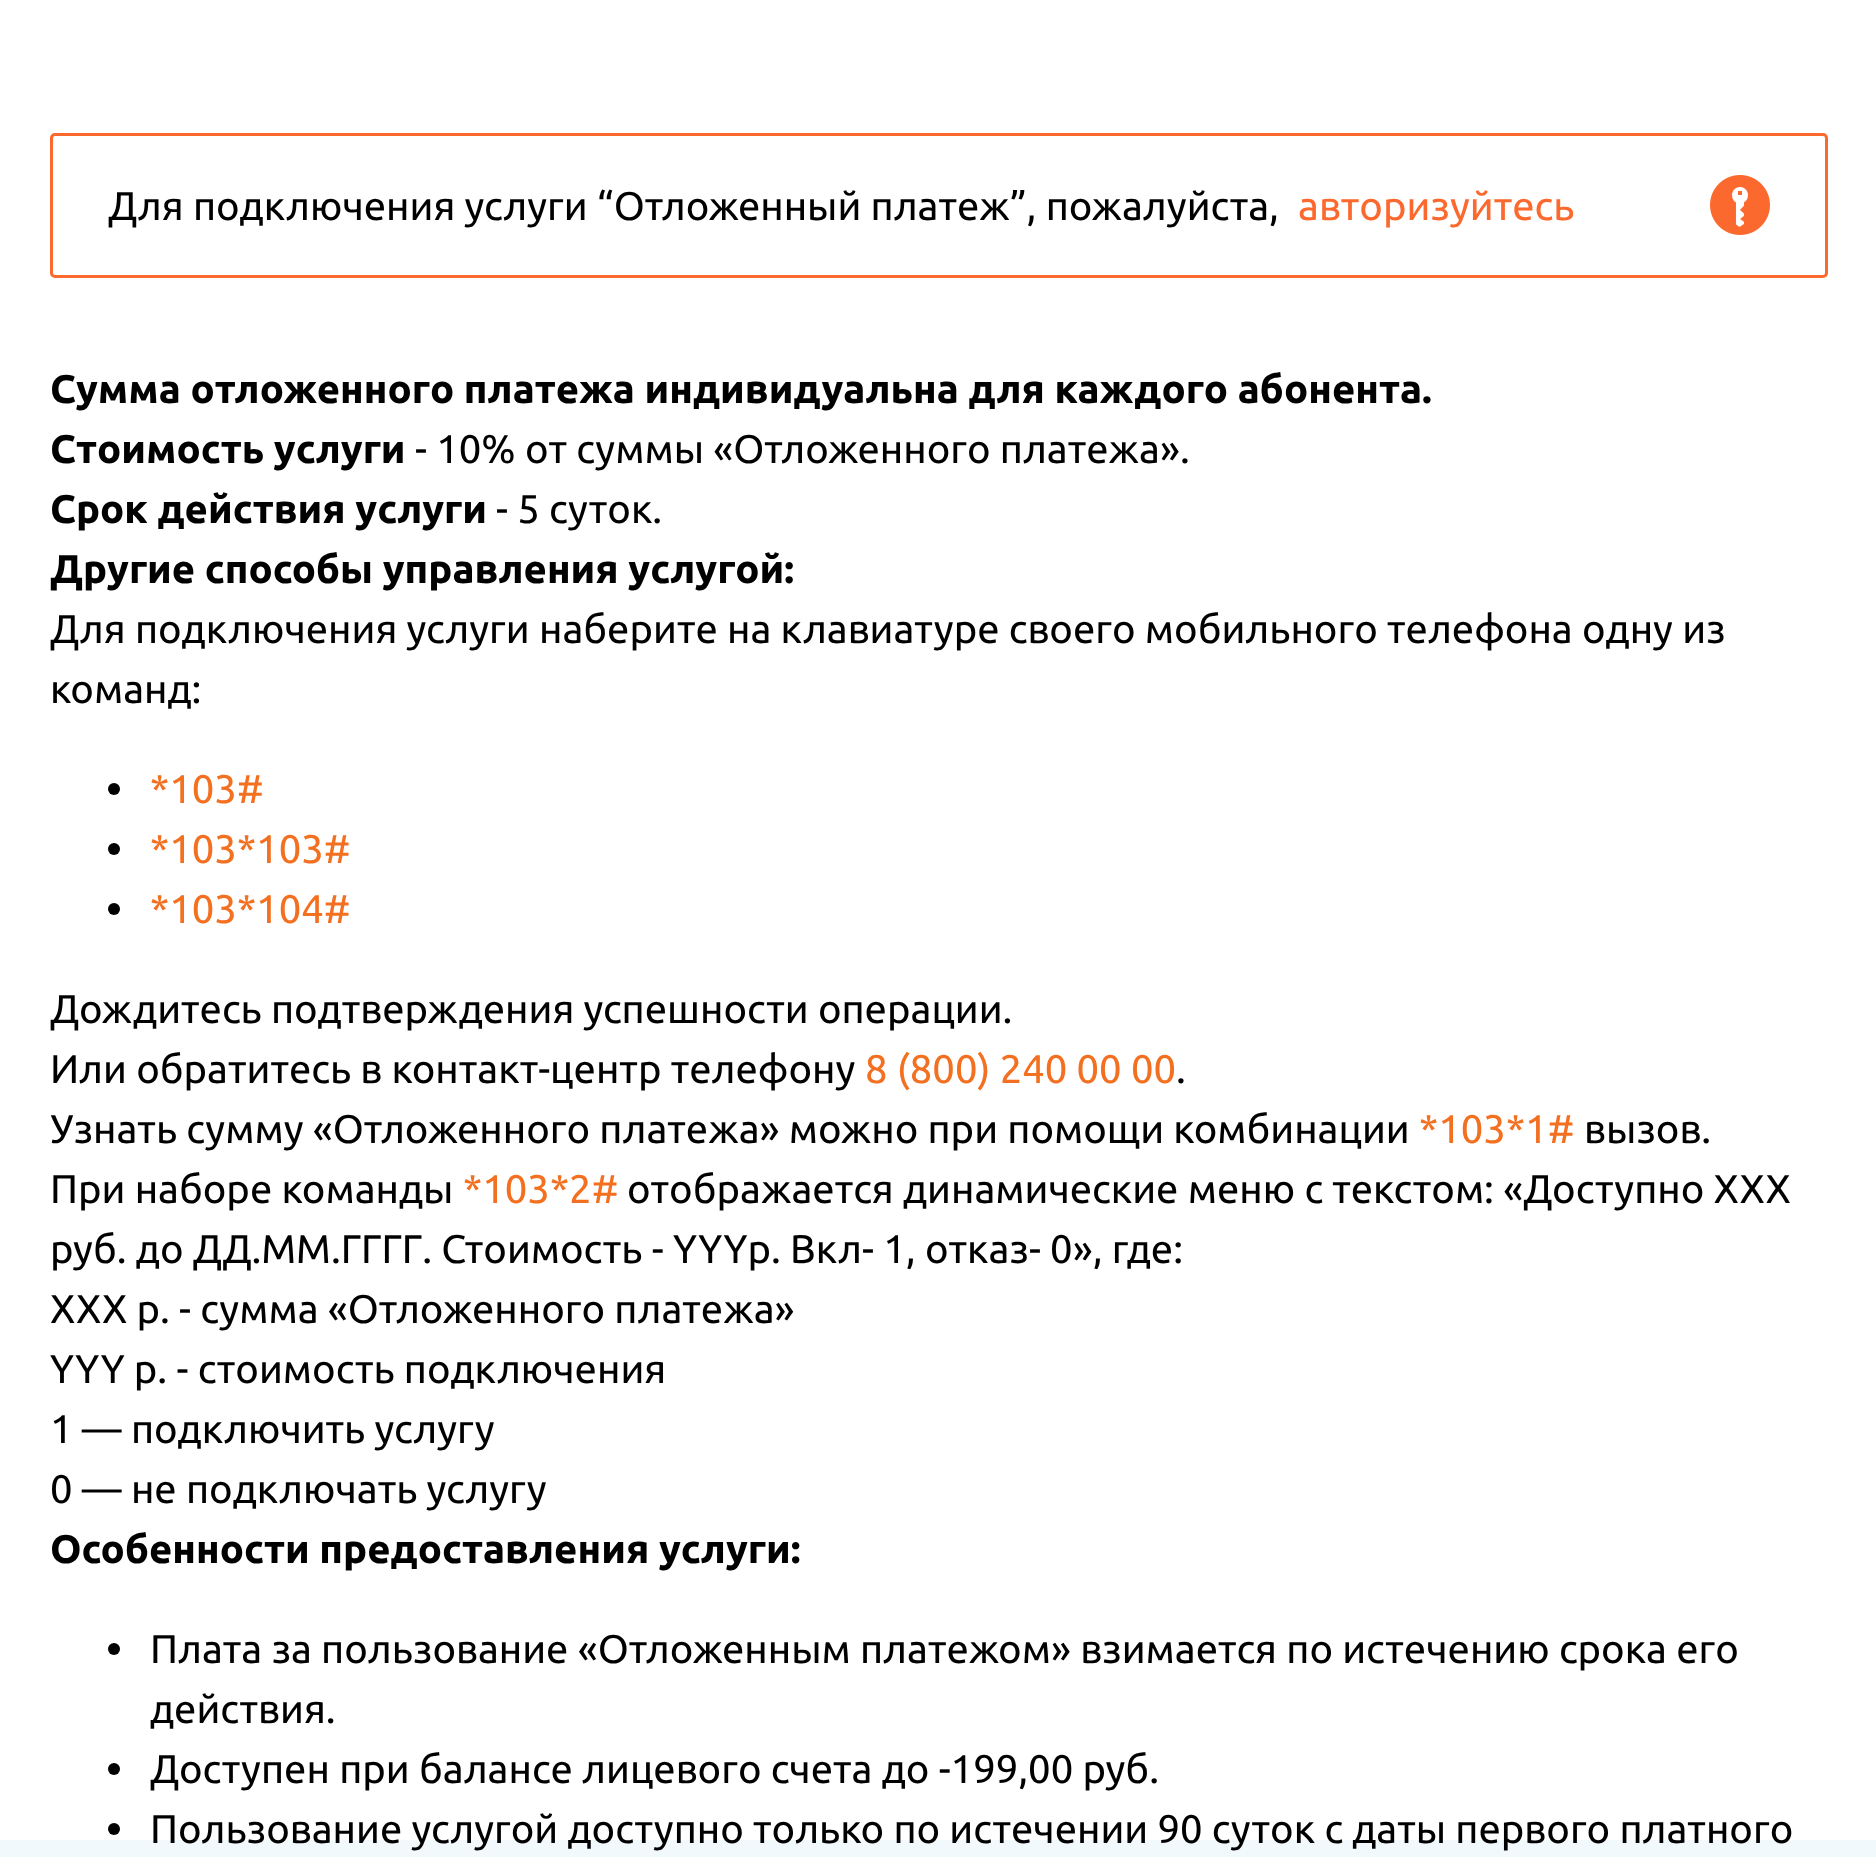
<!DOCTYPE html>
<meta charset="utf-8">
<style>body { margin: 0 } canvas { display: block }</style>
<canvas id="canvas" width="1876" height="1857"></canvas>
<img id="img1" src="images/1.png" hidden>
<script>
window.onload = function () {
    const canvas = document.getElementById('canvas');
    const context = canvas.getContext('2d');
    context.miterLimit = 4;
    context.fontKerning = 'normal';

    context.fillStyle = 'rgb(255, 255, 255)';
    context.fillRect(0, 0, 1876, 1857);
    context.beginPath();
    context.roundRect(51.5, 134.5, 1775, 142, 3.5);
    context.strokeStyle = 'rgb(252, 105, 47)';
    context.lineWidth = 3;
    context.stroke();
    context.drawImage(document.getElementById('img1'), 1710, 175, 60, 60);
    context.fillStyle = 'rgb(0, 0, 0)';
    context.beginPath();
    context.arc(114, 789, 6, 0, 2 * Math.PI);
    context.fill();
    context.beginPath();
    context.arc(114, 849, 6, 0, 2 * Math.PI);
    context.fill();
    context.beginPath();
    context.arc(114, 909, 6, 0, 2 * Math.PI);
    context.fill();
    context.beginPath();
    context.arc(114, 1649, 6, 0, 2 * Math.PI);
    context.fill();
    context.beginPath();
    context.arc(114, 1769, 6, 0, 2 * Math.PI);
    context.fill();
    context.beginPath();
    context.arc(114, 1829, 6, 0, 2 * Math.PI);
    context.fill();
    context.fillStyle = 'rgb(241, 249, 252)';
    context.fillRect(0, 1840, 1876, 17);
    context.font = '40px Ubuntu';
    context.fillStyle = 'rgb(0, 0, 0)';
    context.fillText('Для подключения услуги “Отложенный платеж”, пожалуйста,', 108, 220);
    context.fillStyle = 'rgb(252, 105, 47)';
    context.fillText('авторизуйтесь', 1298, 220);
    context.font = 'bold 40px Ubuntu';
    context.fillStyle = 'rgb(0, 0, 0)';
    context.fillText('Сумма отложенного платежа индивидуальна для каждого абонента.', 50, 403);
    context.fillText('Стоимость услуги', 50, 463);
    context.font = '40px Ubuntu';
    context.fillText('- 10% от суммы «Отложенного платежа».', 415, 463);
    context.font = 'bold 40px Ubuntu';
    context.fillText('Срок действия услуги', 50, 523);
    context.font = '40px Ubuntu';
    context.fillText('- 5 суток.', 496, 523);
    context.font = 'bold 40px Ubuntu';
    context.fillText('Другие способы управления услугой:', 50, 583);
    context.font = '40px Ubuntu';
    context.fillText('Для подключения услуги наберите на клавиатуре своего мобильного телефона одну из', 50, 643);
    context.fillText('команд:', 50, 703);
    context.fillStyle = 'rgb(243, 112, 33)';
    context.fillText('*103#', 150, 803);
    context.fillText('*103*103#', 150, 863);
    context.fillText('*103*104#', 150, 923);
    context.fillStyle = 'rgb(0, 0, 0)';
    context.fillText('Дождитесь подтверждения успешности операции.', 50, 1023);
    context.fillText('Или обратитесь в контакт-центр телефону', 50, 1083);
    context.fillStyle = 'rgb(243, 112, 33)';
    context.fillText('8 (800) 240 00 00', 865, 1083);
    context.fillStyle = 'rgb(0, 0, 0)';
    context.fillText('.', 1176, 1083);
    context.fillText('Узнать сумму «Отложенного платежа» можно при помощи комбинации', 50, 1143);
    context.fillStyle = 'rgb(243, 112, 33)';
    context.fillText('*103*1#', 1419, 1143);
    context.fillStyle = 'rgb(0, 0, 0)';
    context.fillText('вызов.', 1584, 1143);
    context.fillText('При наборе команды', 50, 1203);
    context.fillStyle = 'rgb(243, 112, 33)';
    context.fillText('*103*2#', 463, 1203);
    context.fillStyle = 'rgb(0, 0, 0)';
    context.fillText('отображается динамические меню с текстом: «Доступно ХХХ', 627, 1203);
    context.fillText('руб. до ДД.ММ.ГГГГ. Стоимость - YYYр. Вкл- 1, отказ- 0», где:', 50, 1263);
    context.fillText('ХХХ р. - сумма «Отложенного платежа»', 50, 1323);
    context.fillText('YYY р. - стоимость подключения', 50, 1383);
    context.fillText('1 — подключить услугу', 50, 1443);
    context.fillText('0 — не подключать услугу', 50, 1503);
    context.font = 'bold 40px Ubuntu';
    context.fillText('Особенности предоставления услуги:', 50, 1563);
    context.font = '40px Ubuntu';
    context.fillText('Плата за пользование «Отложенным платежом» взимается по истечению срока его', 150, 1663);
    context.fillText('действия.', 150, 1723);
    context.fillText('Доступен при балансе лицевого счета до -199,00 руб.', 150, 1783);
    context.fillText('Пользование услугой доступно только по истечении 90 суток с даты первого платного', 150, 1843);
};
</script>
